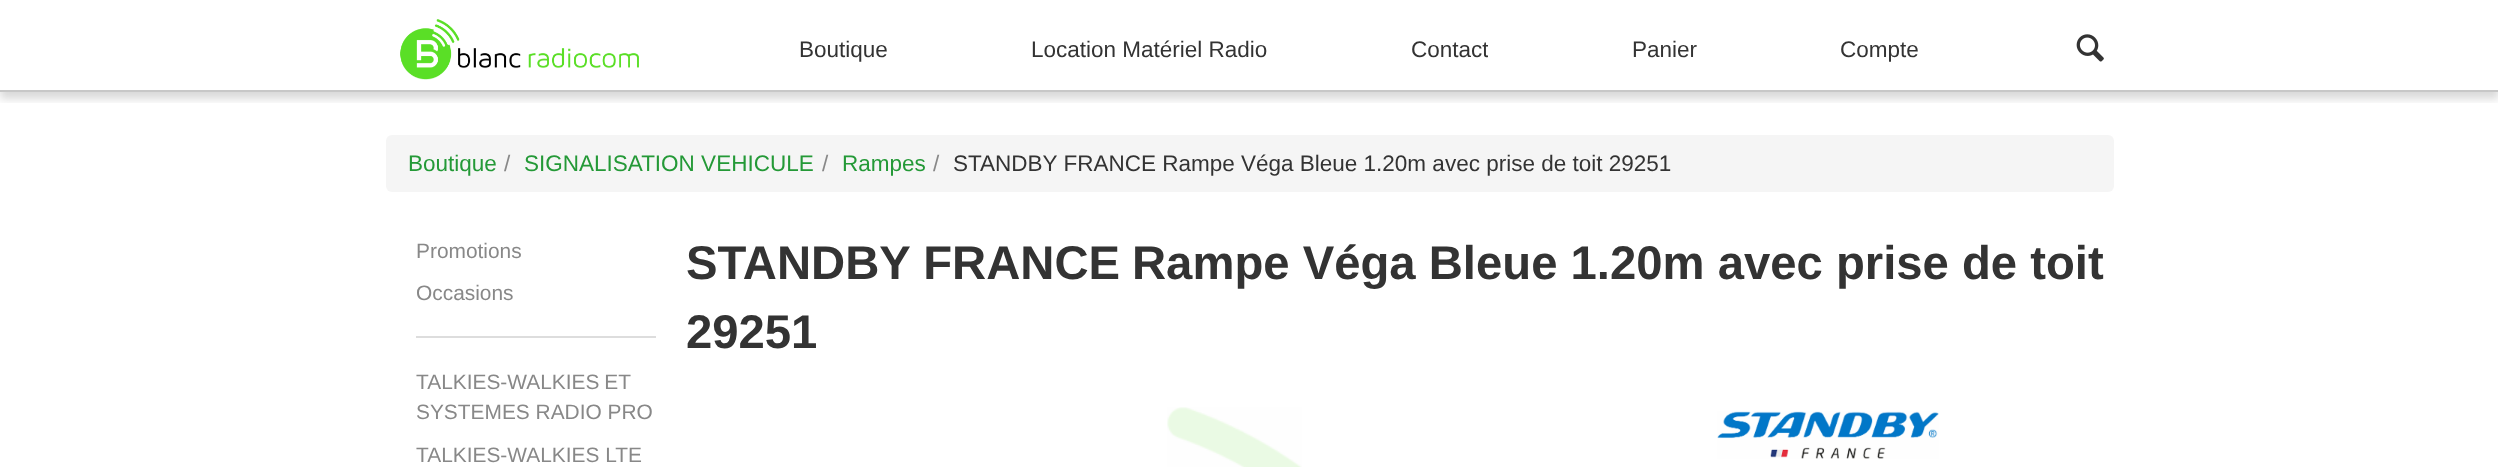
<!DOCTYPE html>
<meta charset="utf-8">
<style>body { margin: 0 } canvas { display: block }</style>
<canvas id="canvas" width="2498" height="467"></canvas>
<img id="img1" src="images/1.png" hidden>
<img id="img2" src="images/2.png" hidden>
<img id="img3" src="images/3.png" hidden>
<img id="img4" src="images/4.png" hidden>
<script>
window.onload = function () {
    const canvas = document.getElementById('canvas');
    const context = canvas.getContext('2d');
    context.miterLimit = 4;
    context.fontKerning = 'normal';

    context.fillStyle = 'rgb(255, 255, 255)';
    context.fillRect(0, 0, 2498, 467);
    context.save();
    context.beginPath();
    context.rect(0, 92, 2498, 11);
    context.clip();
    context.fillStyle = 'rgba(0, 0, 0, 0.15)';
    context.filter = 'blur(4px)';
    context.beginPath();
    context.rect(0, 8, 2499, 91);
    context.fill();
    context.filter = 'none';
    context.restore();
    context.fillStyle = 'rgb(199, 199, 199)';
    context.fillRect(0, 90, 2498, 2);
    context.drawImage(document.getElementById('img1'), 400, 19, 239, 61);
    context.drawImage(document.getElementById('img2'), 2076, 34, 28, 28);
    context.fillStyle = 'rgb(245, 245, 245)';
    context.beginPath();
    context.roundRect(386, 135, 1728, 57, 6);
    context.fill();
    context.fillStyle = 'rgb(221, 221, 221)';
    context.fillRect(416, 336, 240, 2);
    context.drawImage(document.getElementById('img3'), 1167, 407, 135, 60);
    context.drawImage(document.getElementById('img4'), 1717, 411, 222, 48);
    context.font = '22.5px Liberation Sans';
    context.fillStyle = 'rgb(51, 51, 51)';
    context.fillText('Boutique', 799, 57);
    context.fillText('Location Matériel Radio', 1031, 57);
    context.save();
    context.beginPath();
    context.rect(1412, 33, 76, 33);
    context.clip();
    context.fillText('Contact', 1411, 57);
    context.restore();
    context.fillText('Panier', 1632, 57);
    context.fillText('Compte', 1840, 57);
    context.fillStyle = 'rgb(36, 153, 55)';
    context.fillText('Boutique', 408, 171);
    context.fillStyle = 'rgb(136, 136, 136)';
    context.fillText('/', 504, 171);
    context.fillStyle = 'rgb(36, 153, 55)';
    context.fillText('SIGNALISATION VEHICULE', 524, 171);
    context.fillStyle = 'rgb(136, 136, 136)';
    context.fillText('/', 822, 171);
    context.fillStyle = 'rgb(36, 153, 55)';
    context.fillText('Rampes', 842, 171);
    context.fillStyle = 'rgb(136, 136, 136)';
    context.fillText('/', 933, 171);
    context.fillStyle = 'rgb(51, 51, 51)';
    context.fillText('STANDBY FRANCE Rampe Véga Bleue 1.20m avec prise de toit 29251', 953, 171);
    context.font = '20.9px Liberation Sans';
    context.fillStyle = 'rgb(136, 136, 136)';
    context.fillText('Promotions', 416, 258);
    context.fillText('Occasions', 416, 300);
    context.wordSpacing = '-1px';
    context.fillText('TALKIES-WALKIES ET', 416, 389);
    context.wordSpacing = '0px';
    context.fillText('SYSTEMES RADIO PRO', 416, 419);
    context.fillText('TALKIES-WALKIES LTE', 416, 462);
    context.font = 'bold 47.25px Liberation Sans';
    context.fillStyle = 'rgb(51, 51, 51)';
    context.fillText('STANDBY FRANCE', 686, 279);
    context.fillText('Rampe Véga Bleue 1.20m avec prise de toit', 1132, 279);
    context.fillText('29251', 686, 348);
};
</script>
